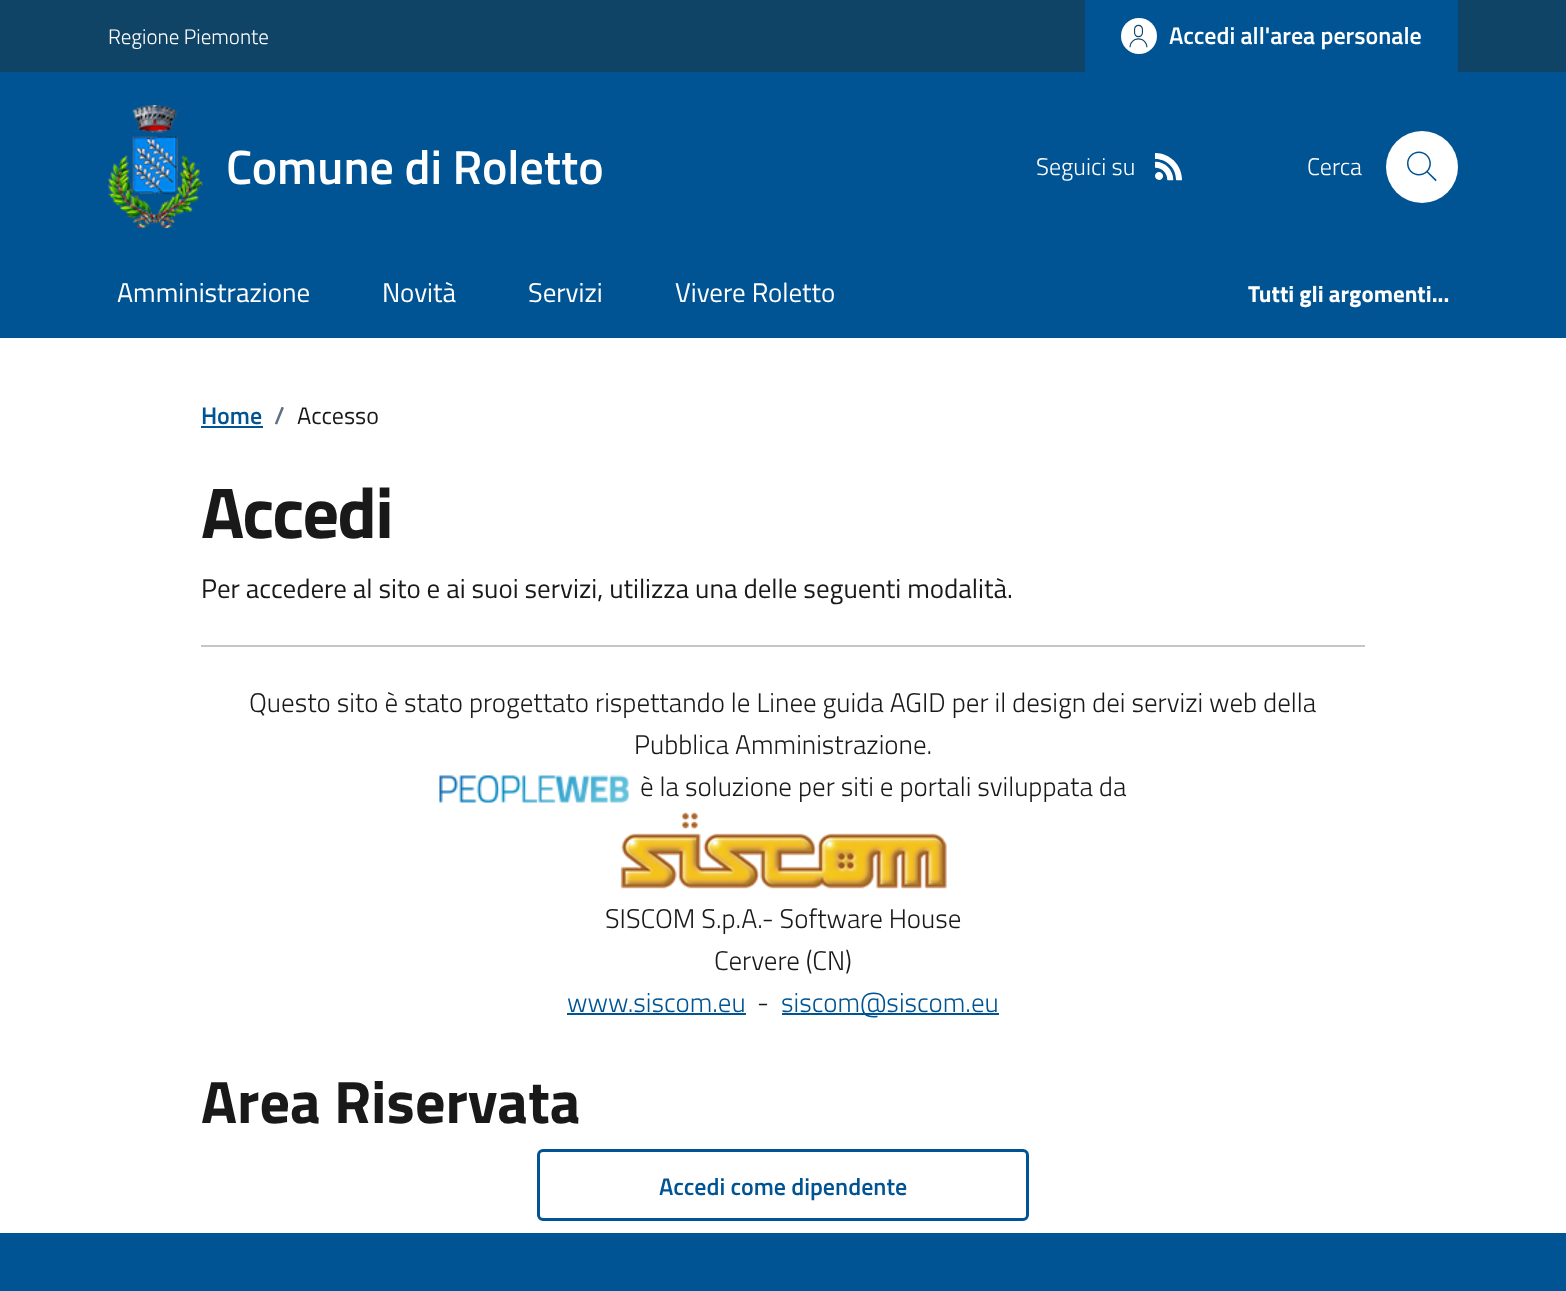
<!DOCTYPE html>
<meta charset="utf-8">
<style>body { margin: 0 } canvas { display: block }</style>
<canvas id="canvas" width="1566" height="1291"></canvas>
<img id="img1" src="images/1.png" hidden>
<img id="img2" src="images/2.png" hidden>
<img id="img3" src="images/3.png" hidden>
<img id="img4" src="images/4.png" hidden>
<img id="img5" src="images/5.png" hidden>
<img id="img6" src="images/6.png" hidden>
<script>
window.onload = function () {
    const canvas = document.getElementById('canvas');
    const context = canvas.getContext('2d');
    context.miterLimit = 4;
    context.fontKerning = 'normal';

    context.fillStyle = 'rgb(255, 255, 255)';
    context.fillRect(0, 0, 1566, 1291);
    context.fillStyle = 'rgb(16, 68, 103)';
    context.fillRect(0, 0, 1566, 72);
    context.fillStyle = 'rgb(0, 84, 147)';
    context.fillRect(1085, 0, 373, 72);
    context.fillStyle = 'rgb(255, 255, 255)';
    context.beginPath();
    context.arc(1139, 36, 18, 0, 2 * Math.PI);
    context.fill();
    context.drawImage(document.getElementById('img1'), 1129, 24, 19, 24);
    context.fillStyle = 'rgb(0, 84, 147)';
    context.fillRect(0, 72, 1566, 266);
    context.drawImage(document.getElementById('img2'), 108, 105, 95, 123);
    context.drawImage(document.getElementById('img3'), 1155, 153, 27, 28);
    context.fillStyle = 'rgb(255, 255, 255)';
    context.beginPath();
    context.arc(1422, 167, 36, 0, 2 * Math.PI);
    context.fill();
    context.drawImage(document.getElementById('img4'), 1407, 151, 30, 31);
    context.fillStyle = 'rgb(0, 84, 147)';
    context.fillRect(201, 426, 62, 2);
    context.fillStyle = 'rgb(198, 198, 198)';
    context.fillRect(201, 645, 1164, 2);
    context.drawImage(document.getElementById('img5'), 439, 775, 190, 28);
    context.drawImage(document.getElementById('img6'), 620, 812, 327, 77);
    context.fillStyle = 'rgb(0, 84, 147)';
    context.fillRect(567, 1013, 179, 2);
    context.fillRect(782, 1013, 217, 2);
    context.beginPath();
    context.roundRect(538.5, 1150.5, 489, 69, 4.5);
    context.strokeStyle = 'rgb(0, 84, 147)';
    context.lineWidth = 3;
    context.stroke();
    context.fillRect(0, 1233, 1566, 58);
    context.font = '300 21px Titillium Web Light';
    context.fillStyle = 'rgb(255, 255, 255)';
    context.fillText('Regione Piemonte', 108, 44);
    context.font = '600 24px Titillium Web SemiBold';
    context.fillText('Accedi all\'area personale', 1169, 44);
    context.font = '600 48px Titillium Web SemiBold';
    context.fillText('Comune di Roletto', 226, 184);
    context.font = '300 24px Titillium Web Light';
    context.fillText('Seguici su', 1036, 175);
    context.fillText('Cerca', 1307, 175);
    context.font = '27px Titillium Web';
    context.fillText('Amministrazione', 117, 302);
    context.fillText('Novità', 382, 302);
    context.fillText('Servizi', 528, 302);
    context.fillText('Vivere Roletto', 675, 302);
    context.font = 'bold 23px Titillium Web';
    context.fillText('Tutti gli argomenti...', 1248, 302);
    context.font = '600 24px Titillium Web SemiBold';
    context.fillStyle = 'rgb(0, 84, 147)';
    context.fillText('Home', 201, 424);
    context.fillStyle = 'rgb(93, 112, 131)';
    context.fillText('/', 274, 424);
    context.font = '24px Titillium Web';
    context.fillStyle = 'rgb(25, 25, 25)';
    context.fillText('Accesso', 297, 424);
    context.letterSpacing = '-1.75px';
    context.font = 'bold 72px Titillium Web';
    context.fillText('Accedi', 201, 538);
    context.letterSpacing = '0px';
    context.font = '27px Titillium Web';
    context.fillText('Per accedere al sito e ai suoi servizi, utilizza una delle seguenti modalità.', 201, 598);
    context.font = '300 27px Titillium Web Light';
    context.fillText('Questo sito è stato progettato rispettando le Linee guida AGID per il design dei servizi web della', 249, 712);
    context.fillText('Pubblica Amministrazione.', 634, 754);
    context.fillText('è la soluzione per siti e portali sviluppata da', 640, 796);
    context.fillText('SISCOM S.p.A.- Software House', 605, 928);
    context.fillText('Cervere (CN)', 714, 970);
    context.fillStyle = 'rgb(0, 84, 147)';
    context.fillText('www.siscom.eu', 567, 1012);
    context.fillStyle = 'rgb(25, 25, 25)';
    context.fillText('-', 757, 1012);
    context.fillStyle = 'rgb(0, 84, 147)';
    context.fillText('siscom@siscom.eu', 781, 1012);
    context.font = 'bold 60px Titillium Web';
    context.fillStyle = 'rgb(25, 25, 25)';
    context.fillText('Area Riservata', 201, 1123);
    context.font = '600 24px Titillium Web SemiBold';
    context.fillStyle = 'rgb(0, 84, 147)';
    context.fillText('Accedi come dipendente', 659, 1195);
};
</script>
